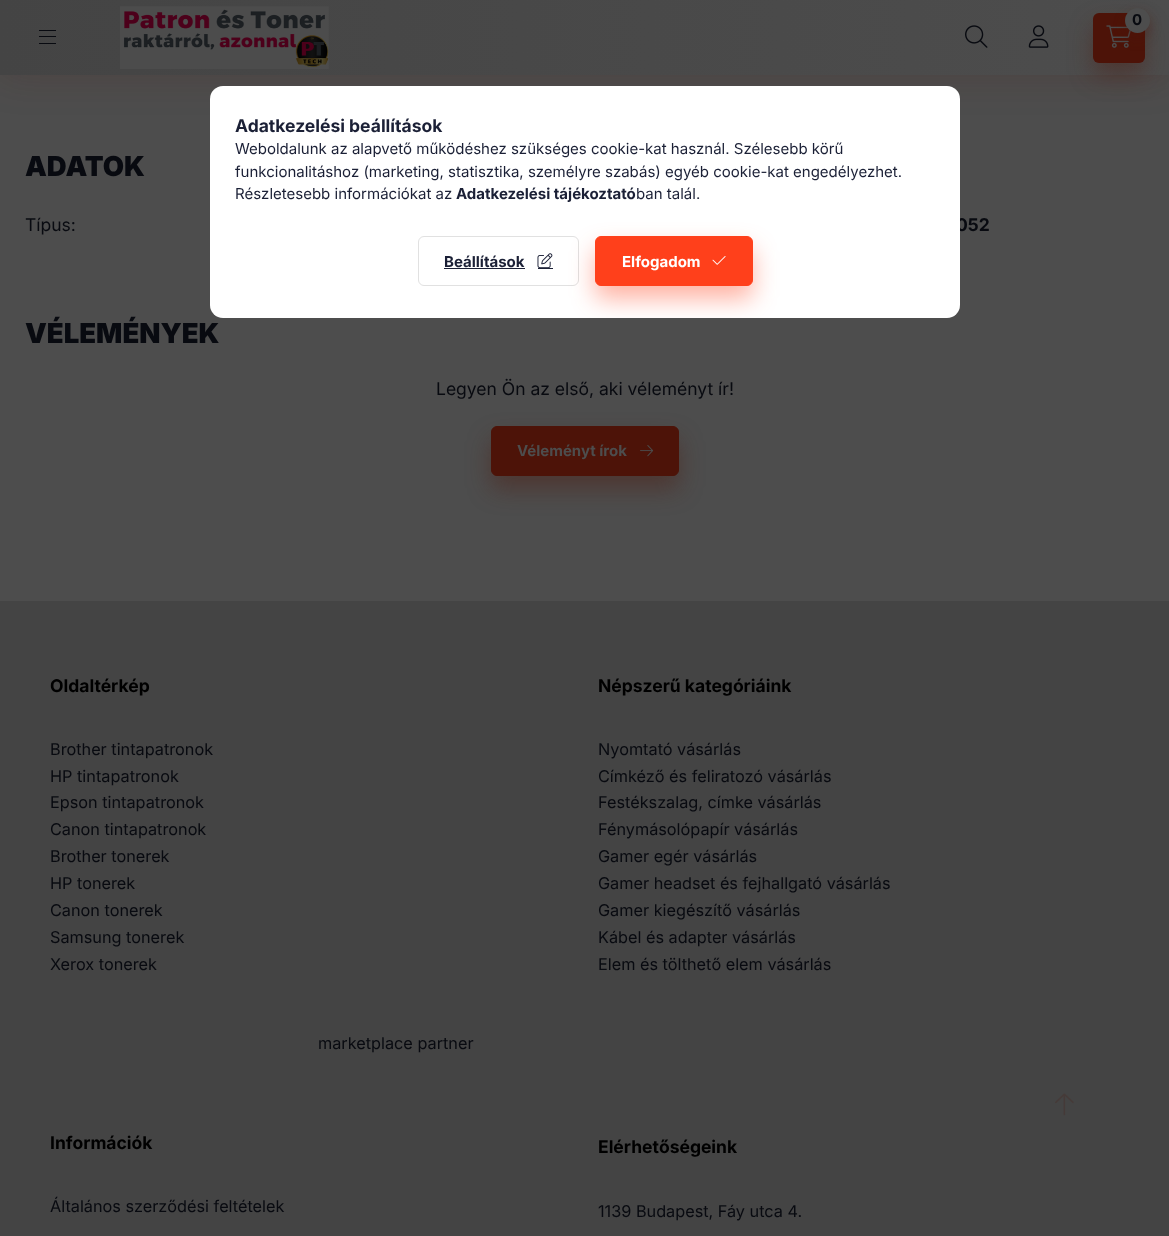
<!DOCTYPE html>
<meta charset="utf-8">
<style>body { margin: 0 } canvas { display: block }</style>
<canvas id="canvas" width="1169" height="1236"></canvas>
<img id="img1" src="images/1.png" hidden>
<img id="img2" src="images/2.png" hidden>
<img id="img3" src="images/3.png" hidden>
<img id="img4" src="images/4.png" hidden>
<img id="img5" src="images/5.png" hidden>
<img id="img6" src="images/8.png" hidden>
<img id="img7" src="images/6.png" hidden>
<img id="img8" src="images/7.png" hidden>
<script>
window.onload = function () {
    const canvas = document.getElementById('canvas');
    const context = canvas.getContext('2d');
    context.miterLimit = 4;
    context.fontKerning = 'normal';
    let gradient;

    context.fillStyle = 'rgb(77, 77, 77)';
    context.fillRect(0, 0, 1169, 1236);
    context.fillStyle = 'rgba(77, 19, 8, 0.2)';
    context.filter = 'blur(19px)';
    context.beginPath();
    context.rect(0, 0, 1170, 75);
    context.fill();
    context.filter = 'none';
    gradient = context.createLinearGradient(0, 618, 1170, 618);
    gradient.addColorStop(0, 'rgb(68, 68, 68)');
    gradient.addColorStop(1, 'rgb(77, 77, 77)');
    context.fillStyle = gradient;
    context.fillRect(0, 0, 1169, 75);
    context.fillStyle = 'rgb(8, 10, 16)';
    context.fillRect(39, 30, 17, 1);
    context.fillRect(39, 36, 17, 1);
    context.fillRect(39, 43, 17, 1);
    context.drawImage(document.getElementById('img1'), 120, 6, 209, 63);
    context.fillStyle = 'rgba(77, 19, 8, 0.4)';
    context.filter = 'blur(12.5px)';
    context.beginPath();
    context.roundRect(1093, 25, 52, 50, 6);
    context.fill();
    context.filter = 'none';
    context.fillStyle = 'rgb(77, 19, 8)';
    context.beginPath();
    context.roundRect(1093, 13, 52, 50, 6);
    context.fill();
    context.drawImage(document.getElementById('img2'), 1106, 25, 25, 23);
    context.fillStyle = 'rgba(77, 19, 8, 0.4)';
    context.filter = 'blur(6px)';
    context.beginPath();
    context.roundRect(1125, 14, 25, 25, 12.5);
    context.fill();
    context.filter = 'none';
    context.fillStyle = 'rgb(77, 77, 77)';
    context.beginPath();
    context.arc(1137.5, 20.5, 12.5, 0, 2 * Math.PI);
    context.fill();
    context.drawImage(document.getElementById('img3'), 965, 25, 23, 23);
    context.drawImage(document.getElementById('img4'), 1028, 25, 21, 23);
    context.fillStyle = 'rgba(77, 19, 8, 0.4)';
    context.filter = 'blur(12.5px)';
    context.beginPath();
    context.roundRect(491, 439, 188, 50, 6);
    context.fill();
    context.filter = 'none';
    context.fillStyle = 'rgb(77, 19, 8)';
    context.beginPath();
    context.roundRect(491.5, 426.5, 187, 49, 5.5);
    context.fill();
    context.strokeStyle = 'rgb(77, 19, 8)';
    context.stroke();
    context.drawImage(document.getElementById('img5'), 640, 445, 14, 12);
    context.fillStyle = 'rgb(68, 68, 68)';
    context.fillRect(0, 601, 1169, 635);
    context.drawImage(document.getElementById('img6'), 1055, 1093, 19, 23);
    context.font = 'bold 15px Inter';
    context.fillStyle = 'rgb(8, 10, 16)';
    context.fillText('0', 1132, 25);
    context.font = '900 27.5px Inter';
    context.fillText('ADATOK', 25, 176);
    context.font = '17.5px Inter';
    context.fillText('Típus:', 25, 231);
    context.font = 'bold 17.5px Inter';
    context.fillText('052', 956, 231);
    context.font = '900 27.5px Inter';
    context.fillText('VÉLEMÉNYEK', 25, 343);
    context.font = '17.5px Inter';
    context.fillText('Legyen Ön az első, aki véleményt ír!', 436, 395);
    context.font = 'bold 15px Inter';
    context.fillStyle = 'rgb(77, 77, 77)';
    context.fillText('Véleményt írok', 517, 456);
    context.font = 'bold 17.5px Inter';
    context.fillStyle = 'rgb(0, 0, 0)';
    context.fillText('Oldaltérkép', 50, 692);
    context.font = '16.25px Inter';
    context.fillStyle = 'rgb(8, 10, 16)';
    context.fillText('Brother tintapatronok', 50, 755);
    context.fillText('HP tintapatronok', 50, 782);
    context.fillText('Epson tintapatronok', 50, 808);
    context.fillText('Canon tintapatronok', 50, 835);
    context.fillText('Brother tonerek', 50, 862);
    context.fillText('HP tonerek', 50, 889);
    context.fillText('Canon tonerek', 50, 916);
    context.fillText('Samsung tonerek', 50, 943);
    context.fillText('Xerox tonerek', 50, 970);
    context.fillText('marketplace partner', 318, 1049);
    context.font = 'bold 17.5px Inter';
    context.fillStyle = 'rgb(0, 0, 0)';
    context.fillText('Népszerű kategóriáink', 598, 692);
    context.font = '16.25px Inter';
    context.fillStyle = 'rgb(8, 10, 16)';
    context.fillText('Nyomtató vásárlás', 598, 755);
    context.fillText('Címkéző és feliratozó vásárlás', 598, 782);
    context.fillText('Festékszalag, címke vásárlás', 598, 808);
    context.fillText('Fénymásolópapír vásárlás', 598, 835);
    context.fillText('Gamer egér vásárlás', 598, 862);
    context.fillText('Gamer headset és fejhallgató vásárlás', 598, 889);
    context.fillText('Gamer kiegészítő vásárlás', 598, 916);
    context.fillText('Kábel és adapter vásárlás', 598, 943);
    context.fillText('Elem és tölthető elem vásárlás', 598, 970);
    context.font = 'bold 17.5px Inter';
    context.fillStyle = 'rgb(0, 0, 0)';
    context.fillText('Információk', 50, 1149);
    context.font = '16.25px Inter';
    context.fillStyle = 'rgb(8, 10, 16)';
    context.fillText('Általános szerződési feltételek', 50, 1212);
    context.font = 'bold 17.5px Inter';
    context.fillStyle = 'rgb(0, 0, 0)';
    context.fillText('Elérhetőségeink', 598, 1153);
    context.font = '16.25px Inter';
    context.fillStyle = 'rgb(8, 10, 16)';
    context.fillText('1139 Budapest, Fáy utca 4.', 598, 1217);
    context.fillStyle = 'rgb(255, 255, 255)';
    context.beginPath();
    context.roundRect(210, 86, 750, 232, 13);
    context.fill();
    context.font = 'bold 17.5px Inter';
    context.fillStyle = 'rgb(27, 32, 54)';
    context.fillText('Adatkezelési beállítások', 235, 132);
    context.font = '15px Inter';
    context.fillText('Weboldalunk az alapvető működéshez szükséges cookie-kat használ. Szélesebb körű', 235, 154);
    context.fillText('funkcionalitáshoz (marketing, statisztika, személyre szabás) egyéb cookie-kat engedélyezhet.', 235, 177);
    context.fillText('Részletesebb információkat az', 235, 199);
    context.font = 'bold 15px Inter';
    context.fillText('Adatkezelési tájékoztató', 456, 199);
    context.font = '15px Inter';
    context.fillText('ban talál.', 636, 199);
    context.beginPath();
    context.roundRect(418.5, 236.5, 160, 49, 5.5);
    context.strokeStyle = 'rgb(225, 225, 225)';
    context.stroke();
    context.font = 'bold 15px Inter';
    context.fillText('Beállítások', 444, 267);
    context.fillRect(444, 268, 81, 1);
    context.drawImage(document.getElementById('img7'), 537, 253, 16, 15);
    context.fillRect(538, 268, 15, 1);
    context.save();
    context.beginPath();
    context.roundRect(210, 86, 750, 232, 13);
    context.clip();
    context.fillStyle = 'rgba(255, 64, 27, 0.4)';
    context.filter = 'blur(12.5px)';
    context.beginPath();
    context.roundRect(595, 249, 158, 50, 6);
    context.fill();
    context.filter = 'none';
    context.restore();
    context.fillStyle = 'rgb(255, 64, 27)';
    context.beginPath();
    context.roundRect(595.5, 236.5, 157, 49, 5.5);
    context.fill();
    context.strokeStyle = 'rgb(255, 64, 27)';
    context.stroke();
    context.fillStyle = 'rgb(255, 255, 255)';
    context.fillText('Elfogadom', 622, 267);
    context.drawImage(document.getElementById('img8'), 712, 256, 14, 9);
};
</script>
